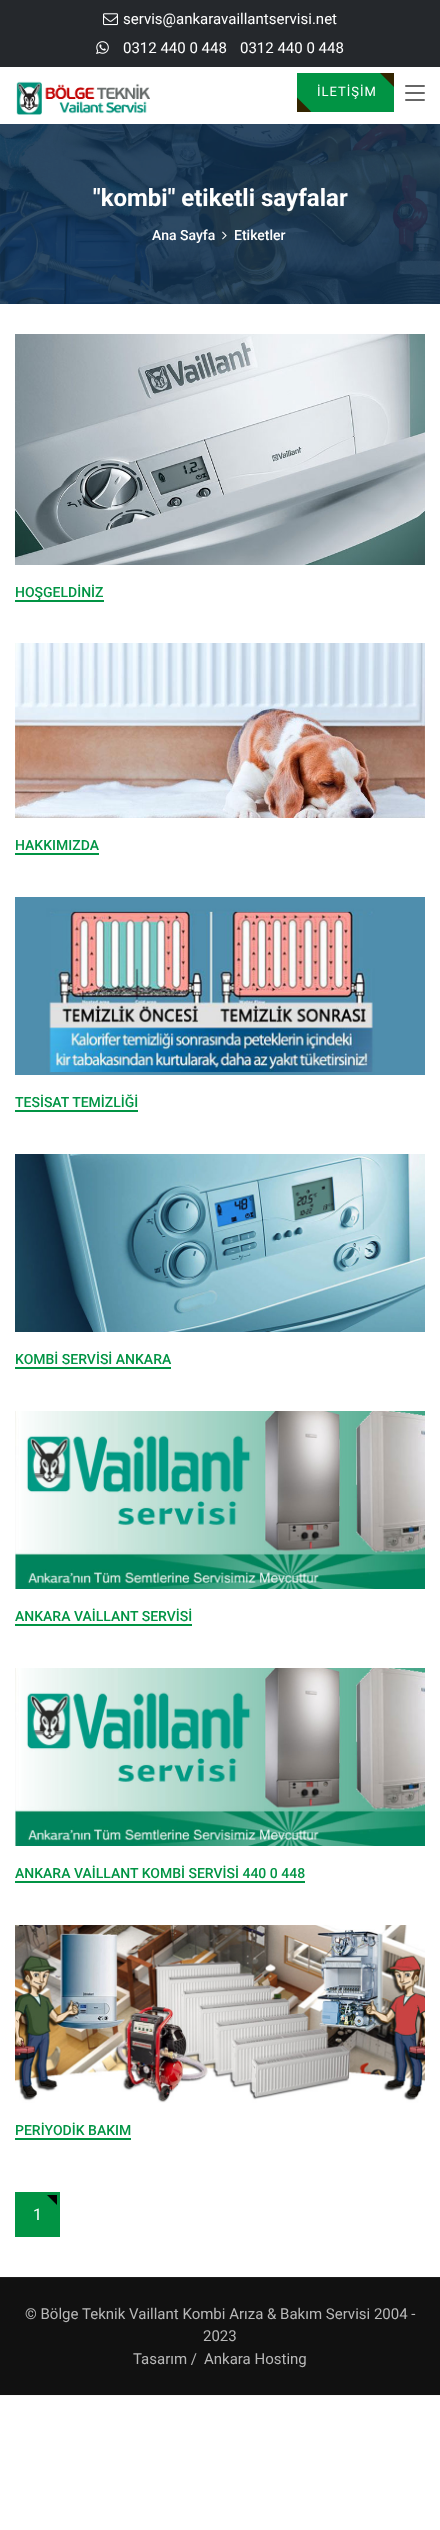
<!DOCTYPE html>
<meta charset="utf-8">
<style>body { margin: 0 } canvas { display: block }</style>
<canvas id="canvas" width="440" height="2530"></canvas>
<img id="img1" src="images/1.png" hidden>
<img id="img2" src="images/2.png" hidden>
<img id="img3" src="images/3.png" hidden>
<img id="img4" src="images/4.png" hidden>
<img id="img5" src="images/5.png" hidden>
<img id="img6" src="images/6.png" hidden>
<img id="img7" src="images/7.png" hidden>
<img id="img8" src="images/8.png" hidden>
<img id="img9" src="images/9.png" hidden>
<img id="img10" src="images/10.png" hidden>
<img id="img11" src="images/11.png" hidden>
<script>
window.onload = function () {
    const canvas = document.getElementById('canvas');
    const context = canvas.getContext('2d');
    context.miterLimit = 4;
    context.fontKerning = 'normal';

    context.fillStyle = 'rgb(255, 255, 255)';
    context.fillRect(0, 0, 440, 2530);
    context.fillStyle = 'rgb(248, 248, 248)';
    context.fillRect(0, 2395, 440, 1);
    context.fillStyle = 'rgb(37, 40, 44)';
    context.fillRect(0, 0, 440, 67);
    context.drawImage(document.getElementById('img1'), 103, 13, 15, 13);
    context.drawImage(document.getElementById('img2'), 96, 41, 13, 13);
    context.drawImage(document.getElementById('img3'), 16, 81, 134, 34);
    context.fillStyle = 'rgb(1, 148, 68)';
    context.fillRect(297, 73, 97, 39);
    context.save();
    context.beginPath();
    context.rect(297, 73, 97, 39);
    context.clip();
    context.fillStyle = 'rgb(51, 37, 0)';
    context.beginPath();
    context.moveTo(394, 59);
    context.lineTo(408, 73);
    context.lineTo(394, 87);
    context.lineTo(380, 73);
    context.closePath();
    context.fill();
    context.beginPath();
    context.moveTo(297, 97.5);
    context.lineTo(311, 111.5);
    context.lineTo(297, 125.5);
    context.lineTo(283, 111.5);
    context.closePath();
    context.fill();
    context.restore();
    context.fillStyle = 'rgb(102, 102, 102)';
    context.beginPath();
    context.roundRect(405, 85, 20, 2, 1);
    context.fill();
    context.beginPath();
    context.roundRect(405, 92, 20, 2, 1);
    context.fill();
    context.beginPath();
    context.roundRect(405, 99, 20, 2, 1);
    context.fill();
    context.drawImage(document.getElementById('img4'), 0, 124, 440, 180);
    context.drawImage(document.getElementById('img5'), 222, 231, 5, 9);
    context.drawImage(document.getElementById('img6'), 15, 334, 410, 231);
    context.fillStyle = 'rgb(1, 148, 68)';
    context.fillRect(15, 600, 89, 2);
    context.drawImage(document.getElementById('img7'), 15, 643, 410, 175);
    context.fillRect(15, 853, 84, 2);
    context.drawImage(document.getElementById('img8'), 15, 897, 410, 178);
    context.fillRect(15, 1110, 123, 2);
    context.drawImage(document.getElementById('img9'), 15, 1154, 410, 178);
    context.fillRect(15, 1367, 156, 2);
    context.drawImage(document.getElementById('img10'), 15, 1411, 410, 178);
    context.fillRect(15, 1624, 177, 2);
    context.drawImage(document.getElementById('img10'), 15, 1668, 410, 178);
    context.fillRect(15, 1881, 290, 2);
    context.drawImage(document.getElementById('img11'), 15, 1925, 410, 178);
    context.fillRect(15, 2138, 116, 2);
    context.fillRect(15, 2192, 45, 45);
    context.fillStyle = 'rgb(0, 0, 0)';
    context.beginPath();
    context.moveTo(57, 2195);
    context.lineTo(57, 2205);
    context.lineTo(47, 2195);
    context.closePath();
    context.fill();
    context.fillStyle = 'rgb(17, 17, 17)';
    context.fillRect(0, 2278, 440, 117);
    context.fillStyle = 'rgb(29, 29, 29)';
    context.fillRect(0, 2277, 440, 1);
    context.font = '15px Roboto';
    context.fillStyle = 'rgb(255, 255, 255)';
    context.fillText('servis@ankaravaillantservisi.net', 123, 24);
    context.fillText('0312 440 0 448', 123, 53);
    context.fillText('0312 440 0 448', 240, 53);
    context.letterSpacing = '1px';
    context.font = '13px Roboto';
    context.fillText('İLETİŞİM', 317, 96);
    context.letterSpacing = '0px';
    context.font = 'bold 24px Roboto';
    context.fillText('"kombi" etiketli sayfalar', 93, 206);
    context.font = '500 14px Roboto';
    context.fillText('Ana Sayfa', 152, 240);
    context.fillText('Etiketler', 234, 240);
    context.fillStyle = 'rgb(1, 148, 68)';
    context.fillText('HOŞGELDİNİZ', 15, 597);
    context.fillText('HAKKIMIZDA', 15, 850);
    context.fillText('TESİSAT TEMİZLİĞİ', 15, 1107);
    context.fillText('KOMBİ SERVİSİ ANKARA', 15, 1364);
    context.fillText('ANKARA VAİLLANT SERVİSİ', 15, 1621);
    context.fillText('ANKARA VAİLLANT KOMBİ SERVİSİ 440 0 448', 15, 1878);
    context.fillText('PERİYODİK BAKIM', 15, 2135);
    context.font = '16px Roboto';
    context.fillStyle = 'rgb(255, 255, 255)';
    context.fillText('1', 33, 2220);
    context.font = '15px Roboto';
    context.fillStyle = 'rgb(184, 184, 184)';
    context.fillText('© Bölge', 25, 2319);
    context.fillText('Teknik Vaillant Kombi Arıza & Bakım Servisi 2004 -', 82, 2319);
    context.fillText('2023', 203, 2341);
    context.fillText('Tasarım /', 133, 2364);
    context.fillText('Ankara Hosting', 204, 2364);
};
</script>
